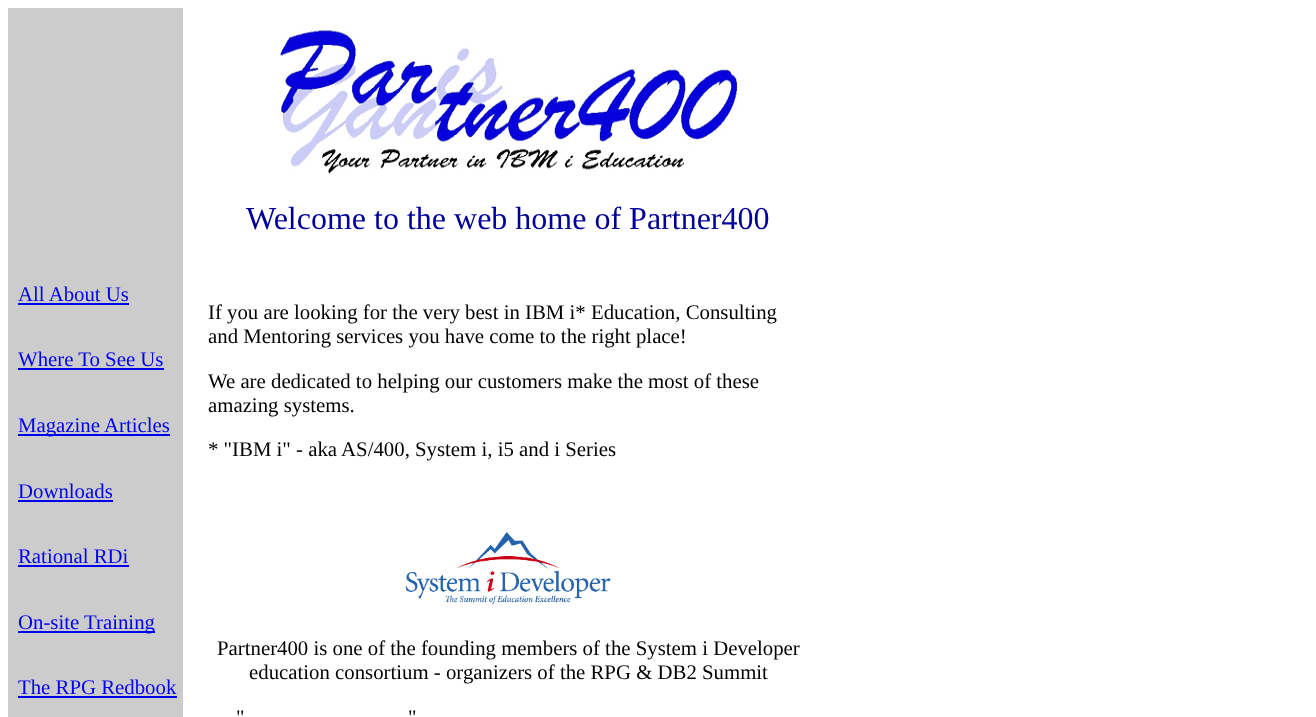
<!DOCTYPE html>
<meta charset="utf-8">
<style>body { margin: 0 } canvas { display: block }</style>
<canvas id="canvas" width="1316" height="717"></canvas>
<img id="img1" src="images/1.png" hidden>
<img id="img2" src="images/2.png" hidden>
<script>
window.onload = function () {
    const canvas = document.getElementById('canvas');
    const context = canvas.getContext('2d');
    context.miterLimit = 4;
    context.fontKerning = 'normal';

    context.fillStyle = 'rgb(255, 255, 255)';
    context.fillRect(0, 0, 1316, 717);
    context.fillStyle = 'rgb(204, 204, 204)';
    context.fillRect(8, 8, 175, 709);
    context.drawImage(document.getElementById('img1'), 277, 28, 463, 146);
    context.fillStyle = 'rgb(0, 0, 238)';
    context.fillRect(18, 303, 111, 2);
    context.fillRect(18, 368, 146, 2);
    context.fillRect(18, 434, 152, 2);
    context.fillRect(18, 500, 95, 2);
    context.fillRect(18, 565, 111, 2);
    context.fillRect(18, 631, 137, 2);
    context.fillRect(18, 696, 159, 2);
    context.drawImage(document.getElementById('img2'), 405, 531, 206, 74);
    context.font = '32px Liberation Serif';
    context.fillStyle = 'rgb(0, 0, 153)';
    context.fillText('Welcome to the web home of Partner400', 246, 229);
    context.font = '20.8px Liberation Serif';
    context.fillStyle = 'rgb(0, 0, 238)';
    context.fillText('All About Us', 18, 301);
    context.fillText('Where To See Us', 18, 366);
    context.fillText('Magazine Articles', 18, 432);
    context.fillText('Downloads', 18, 498);
    context.fillText('Rational RDi', 18, 563);
    context.fillText('On-site Training', 18, 629);
    context.fillText('The RPG Redbook', 18, 694);
    context.fillStyle = 'rgb(0, 0, 0)';
    context.fillText('If you are looking for the very best in IBM i* Education, Consulting', 208, 319);
    context.fillText('and Mentoring services you have come to the right place!', 208, 343);
    context.fillText('We are dedicated to helping our customers make the most of these', 208, 388);
    context.fillText('amazing systems.', 208, 412);
    context.fillText('* "IBM i" - aka AS/400, System i, i5 and i Series', 208, 456);
    context.fillText('Partner400 is one of the founding members of the System i Developer', 217, 655);
    context.fillText('education consortium - organizers of the RPG & DB2 Summit', 249, 679);
    context.fillText('"', 236, 724);
    context.fillText('"', 408, 724);
};
</script>
